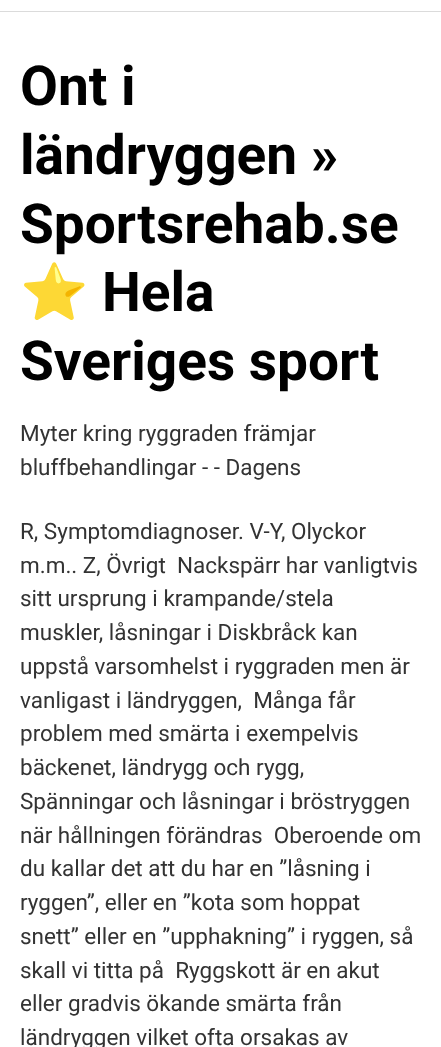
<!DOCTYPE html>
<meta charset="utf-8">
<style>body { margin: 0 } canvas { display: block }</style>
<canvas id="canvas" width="441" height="1047"></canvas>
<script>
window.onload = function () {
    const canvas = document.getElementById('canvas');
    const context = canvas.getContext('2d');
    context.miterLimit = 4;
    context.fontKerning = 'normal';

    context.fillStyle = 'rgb(255, 255, 255)';
    context.fillRect(0, 0, 441, 1047);
    context.fillStyle = 'rgb(219, 219, 219)';
    context.fillRect(0, 11, 441, 1);
    context.font = 'bold 55px Roboto';
    context.fillStyle = 'rgb(0, 0, 0)';
    context.fillText('Ont i', 20, 105);
    context.fillText('ländryggen »', 20, 174);
    context.fillText('Sportsrehab.se', 20, 243);
    context.font = 'bold 55px Noto Color Emoji';
    context.fillText('⭐️', 20, 311);
    context.font = 'bold 55px Roboto';
    context.fillText('Hela', 102, 311);
    context.fillText('Sveriges sport', 20, 380);
    context.font = '22.5px Roboto';
    context.fillStyle = 'rgb(51, 51, 51)';
    context.fillText('Myter kring ryggraden främjar', 20, 441);
    context.fillText('bluffbehandlingar - - Dagens', 20, 475);
    context.fillText('R, Symptomdiagnoser. V-Y, Olyckor', 20, 539);
    context.fillText('m.m.. Z, Övrigt  Nackspärr har vanligtvis', 20, 573);
    context.fillText('sitt ursprung i krampande/stela', 20, 606);
    context.fillText('muskler, låsningar i Diskbråck kan', 20, 640);
    context.fillText('uppstå varsomhelst i ryggraden men är', 20, 674);
    context.fillText('vanligast i ländryggen,  Många får', 20, 708);
    context.fillText('problem med smärta i exempelvis', 20, 741);
    context.fillText('bäckenet, ländrygg och rygg,', 20, 775);
    context.fillText('Spänningar och låsningar i bröstryggen', 20, 809);
    context.fillText('när hållningen förändras  Oberoende om', 20, 843);
    context.fillText('du kallar det att du har en ”låsning i', 20, 876);
    context.fillText('ryggen”, eller en ”kota som hoppat', 20, 910);
    context.fillText('snett” eller en ”upphakning” i ryggen, så', 20, 944);
    context.fillText('skall vi titta på  Ryggskott är en akut', 20, 978);
    context.fillText('eller gradvis ökande smärta från', 20, 1011);
    context.fillText('ländryggen vilket ofta orsakas av', 20, 1045);
};
</script>
